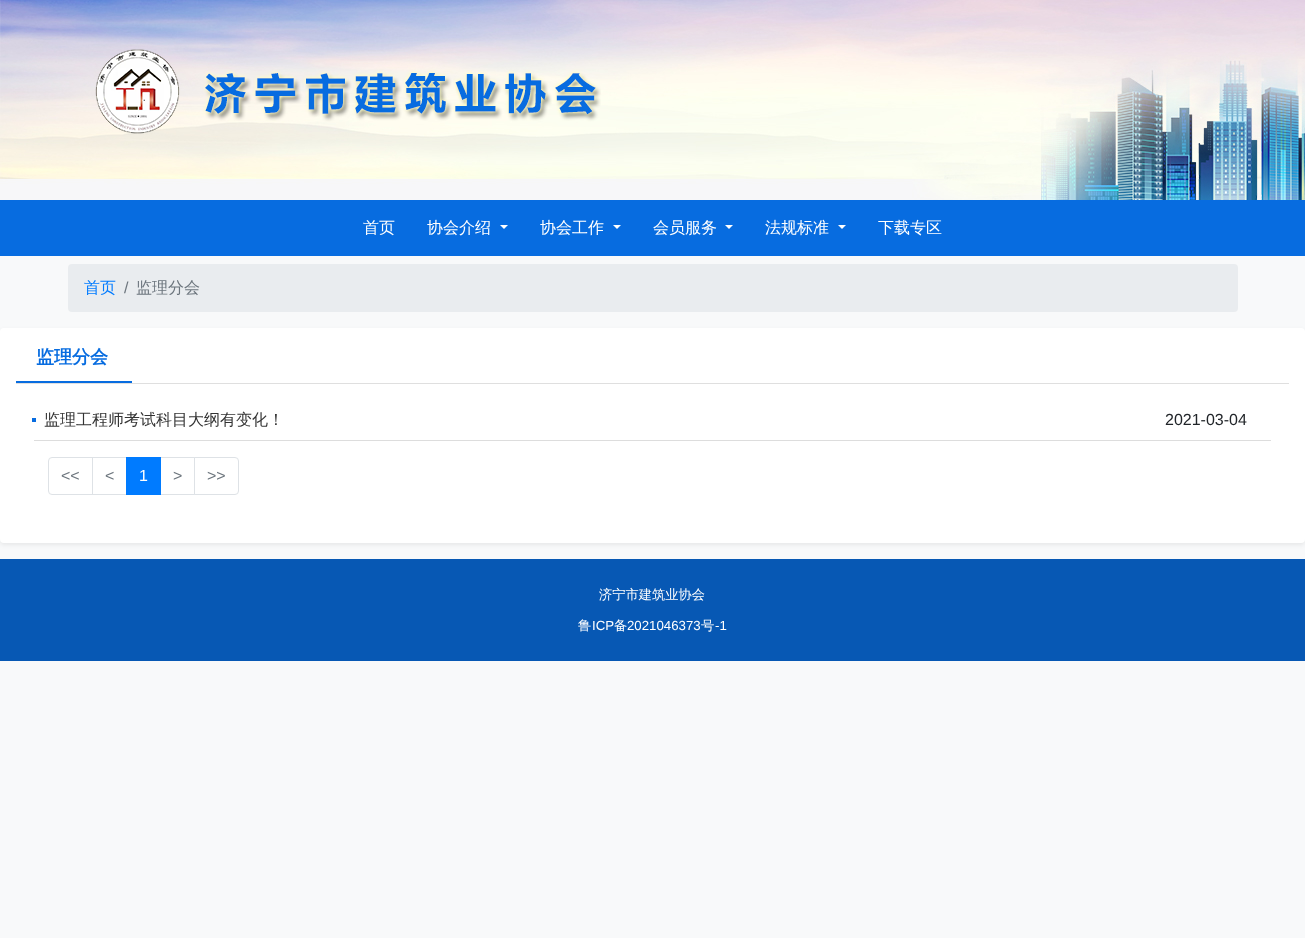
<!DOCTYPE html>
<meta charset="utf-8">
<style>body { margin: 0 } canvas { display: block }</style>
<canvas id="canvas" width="1305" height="938"></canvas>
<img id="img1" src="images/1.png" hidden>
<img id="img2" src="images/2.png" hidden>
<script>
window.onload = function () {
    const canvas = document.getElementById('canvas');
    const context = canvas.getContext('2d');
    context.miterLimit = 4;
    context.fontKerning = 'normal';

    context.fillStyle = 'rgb(248, 249, 250)';
    context.fillRect(0, 0, 1305, 938);
    context.drawImage(document.getElementById('img1'), 0, 0, 1305, 200);
    context.drawImage(document.getElementById('img2'), 95, 49, 506, 85);
    context.fillStyle = 'rgb(7, 108, 224)';
    context.fillRect(0, 200, 1305, 56);
    context.fillStyle = 'rgb(255, 255, 255)';
    context.beginPath();
    context.moveTo(500, 225);
    context.lineTo(508, 225);
    context.lineTo(504, 229);
    context.closePath();
    context.fill();
    context.beginPath();
    context.moveTo(613, 225);
    context.lineTo(621, 225);
    context.lineTo(617, 229);
    context.closePath();
    context.fill();
    context.beginPath();
    context.moveTo(725, 225);
    context.lineTo(733, 225);
    context.lineTo(729, 229);
    context.closePath();
    context.fill();
    context.beginPath();
    context.moveTo(838, 225);
    context.lineTo(846, 225);
    context.lineTo(842, 229);
    context.closePath();
    context.fill();
    context.fillStyle = 'rgb(233, 236, 239)';
    context.beginPath();
    context.roundRect(68, 264, 1170, 48, 4);
    context.fill();
    context.fillStyle = 'rgba(0, 0, 0, 0.07)';
    context.filter = 'blur(2px)';
    context.beginPath();
    context.roundRect(0, 330, 1305, 215, 4);
    context.fill();
    context.filter = 'none';
    context.fillStyle = 'rgb(255, 255, 255)';
    context.beginPath();
    context.roundRect(0, 328, 1305, 215, 4);
    context.fill();
    context.fillStyle = 'rgb(223, 223, 223)';
    context.fillRect(16, 383, 1273, 1);
    context.fillStyle = 'rgb(7, 108, 224)';
    context.fillRect(16, 381, 116, 2);
    context.fillStyle = 'rgb(221, 221, 221)';
    context.fillRect(34, 440, 1237, 1);
    context.fillStyle = 'rgb(7, 108, 224)';
    context.fillRect(32, 418, 4, 4);
    context.beginPath();
    context.roundRect(48.5, 457.5, 44, 37, [3.5, 0, 0, 3.5]);
    context.strokeStyle = 'rgb(222, 226, 230)';
    context.stroke();
    context.strokeRect(92.5, 457.5, 34, 37);
    context.strokeRect(160.5, 457.5, 34, 37);
    context.fillStyle = 'rgb(0, 123, 255)';
    context.fillRect(126, 457, 35, 38);
    context.fillStyle = 'rgb(255, 255, 255)';
    context.beginPath();
    context.roundRect(194.5, 457.5, 44, 37, [0, 3.5, 3.5, 0]);
    context.fill();
    context.stroke();
    context.fillStyle = 'rgb(7, 88, 180)';
    context.fillRect(0, 559, 1305, 102);
    context.font = '500 16px WenQuanYi Zen Hei';
    context.fillStyle = 'rgb(255, 255, 255)';
    context.fillText('首页', 363, 233);
    context.fillText('协会介绍', 427, 233);
    context.fillText('协会工作', 540, 233);
    context.fillText('会员服务', 653, 233);
    context.fillText('法规标准', 765, 233);
    context.fillText('下载专区', 878, 233);
    context.fillStyle = 'rgb(0, 123, 255)';
    context.fillText('首页', 84, 293);
    context.font = '16px Liberation Sans';
    context.fillStyle = 'rgb(108, 117, 125)';
    context.fillText('/', 124, 293);
    context.font = '500 16px WenQuanYi Zen Hei';
    context.fillText('监理分会', 136, 293);
    context.font = 'bold 18px WenQuanYi Zen Hei';
    context.fillStyle = 'rgb(7, 108, 224)';
    context.fillText('监理分会', 36, 363);
    context.font = '500 16px WenQuanYi Zen Hei';
    context.fillStyle = 'rgb(51, 51, 51)';
    context.fillText('监理工程师考试科目大纲有变化！', 44, 425);
    context.font = '16px Liberation Sans';
    context.fillStyle = 'rgb(33, 37, 41)';
    context.fillText('2021-03-04', 1165, 425);
    context.fillStyle = 'rgb(108, 117, 125)';
    context.fillText('<<', 61, 481);
    context.fillText('<', 105, 481);
    context.fillStyle = 'rgb(255, 255, 255)';
    context.fillText('1', 139, 481);
    context.fillStyle = 'rgb(108, 117, 125)';
    context.fillText('>', 173, 481);
    context.fillText('>>', 207, 481);
    context.font = '500 13.25px WenQuanYi Zen Hei';
    context.fillStyle = 'rgb(255, 255, 255)';
    context.fillText('济宁市建筑业协会', 599, 599);
    context.fillText('鲁', 578, 630);
    context.font = '13.25px Liberation Sans';
    context.fillText('ICP', 592, 630);
    context.font = '500 13.25px WenQuanYi Zen Hei';
    context.fillText('备', 614, 630);
    context.font = '13.25px Liberation Sans';
    context.fillText('2021046373', 627, 630);
    context.font = '500 13.25px WenQuanYi Zen Hei';
    context.fillText('号', 701, 630);
    context.font = '13.25px Liberation Sans';
    context.fillText('-1', 715, 630);
};
</script>
